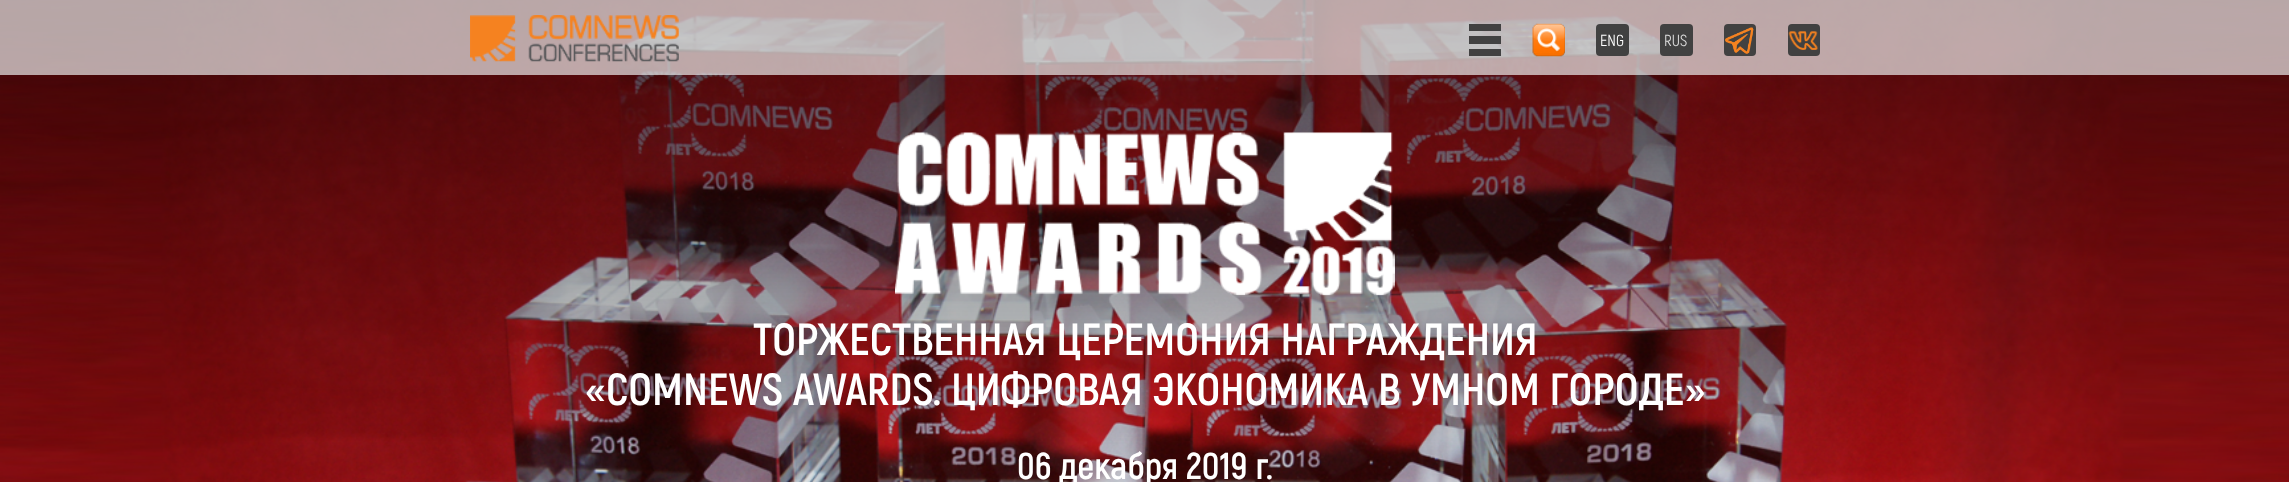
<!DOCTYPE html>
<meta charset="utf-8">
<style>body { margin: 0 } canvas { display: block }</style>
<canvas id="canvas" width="2289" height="482"></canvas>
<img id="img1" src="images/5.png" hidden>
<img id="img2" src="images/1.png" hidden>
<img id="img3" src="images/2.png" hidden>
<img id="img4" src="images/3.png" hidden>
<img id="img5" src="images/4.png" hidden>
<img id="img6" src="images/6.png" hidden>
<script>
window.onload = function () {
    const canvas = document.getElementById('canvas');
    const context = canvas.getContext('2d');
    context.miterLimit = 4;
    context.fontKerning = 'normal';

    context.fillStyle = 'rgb(255, 255, 255)';
    context.fillRect(0, 0, 2289, 482);
    context.drawImage(document.getElementById('img1'), 0, 0, 2289, 482);
    context.fillStyle = 'rgba(235, 235, 235, 0.7)';
    context.fillRect(0, 0, 2289, 75);
    context.drawImage(document.getElementById('img2'), 470, 15, 209, 47);
    context.fillStyle = 'rgb(65, 65, 65)';
    context.fillRect(1469, 24, 32, 7);
    context.fillRect(1469, 49, 32, 7);
    context.fillRect(1469, 36, 32, 8);
    context.drawImage(document.getElementById('img3'), 1532, 23, 33, 34);
    context.beginPath();
    context.roundRect(1596, 24, 33, 32, 4);
    context.fill();
    context.beginPath();
    context.roundRect(1660, 24, 33, 32, 4);
    context.fill();
    context.beginPath();
    context.roundRect(1724, 24, 32, 32, 4);
    context.fill();
    context.drawImage(document.getElementById('img4'), 1725, 27, 29, 27);
    context.beginPath();
    context.roundRect(1788, 24, 32, 32, 4);
    context.fill();
    context.drawImage(document.getElementById('img5'), 1788, 31, 30, 19);
    context.drawImage(document.getElementById('img6'), 895, 132, 500, 164);
    context.font = '16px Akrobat';
    context.fillStyle = 'rgb(255, 255, 255)';
    context.fillText('ENG', 1600, 46);
    context.fillStyle = 'rgb(221, 221, 221)';
    context.fillText('RUS', 1664, 46);
    context.font = 'bold 45px Akrobat';
    context.fillStyle = 'rgb(255, 255, 255)';
    context.fillText('ТОРЖЕСТВЕННАЯ ЦЕРЕМОНИЯ НАГРАЖДЕНИЯ', 753, 355);
    context.fillText('«COMNEWS AWARDS. ЦИФРОВАЯ ЭКОНОМИКА В УМНОМ ГОРОДЕ»', 585, 405);
    context.font = 'bold 37.5px Akrobat';
    context.fillText('06 декабря 2019 г.', 1017, 479);
};
</script>
